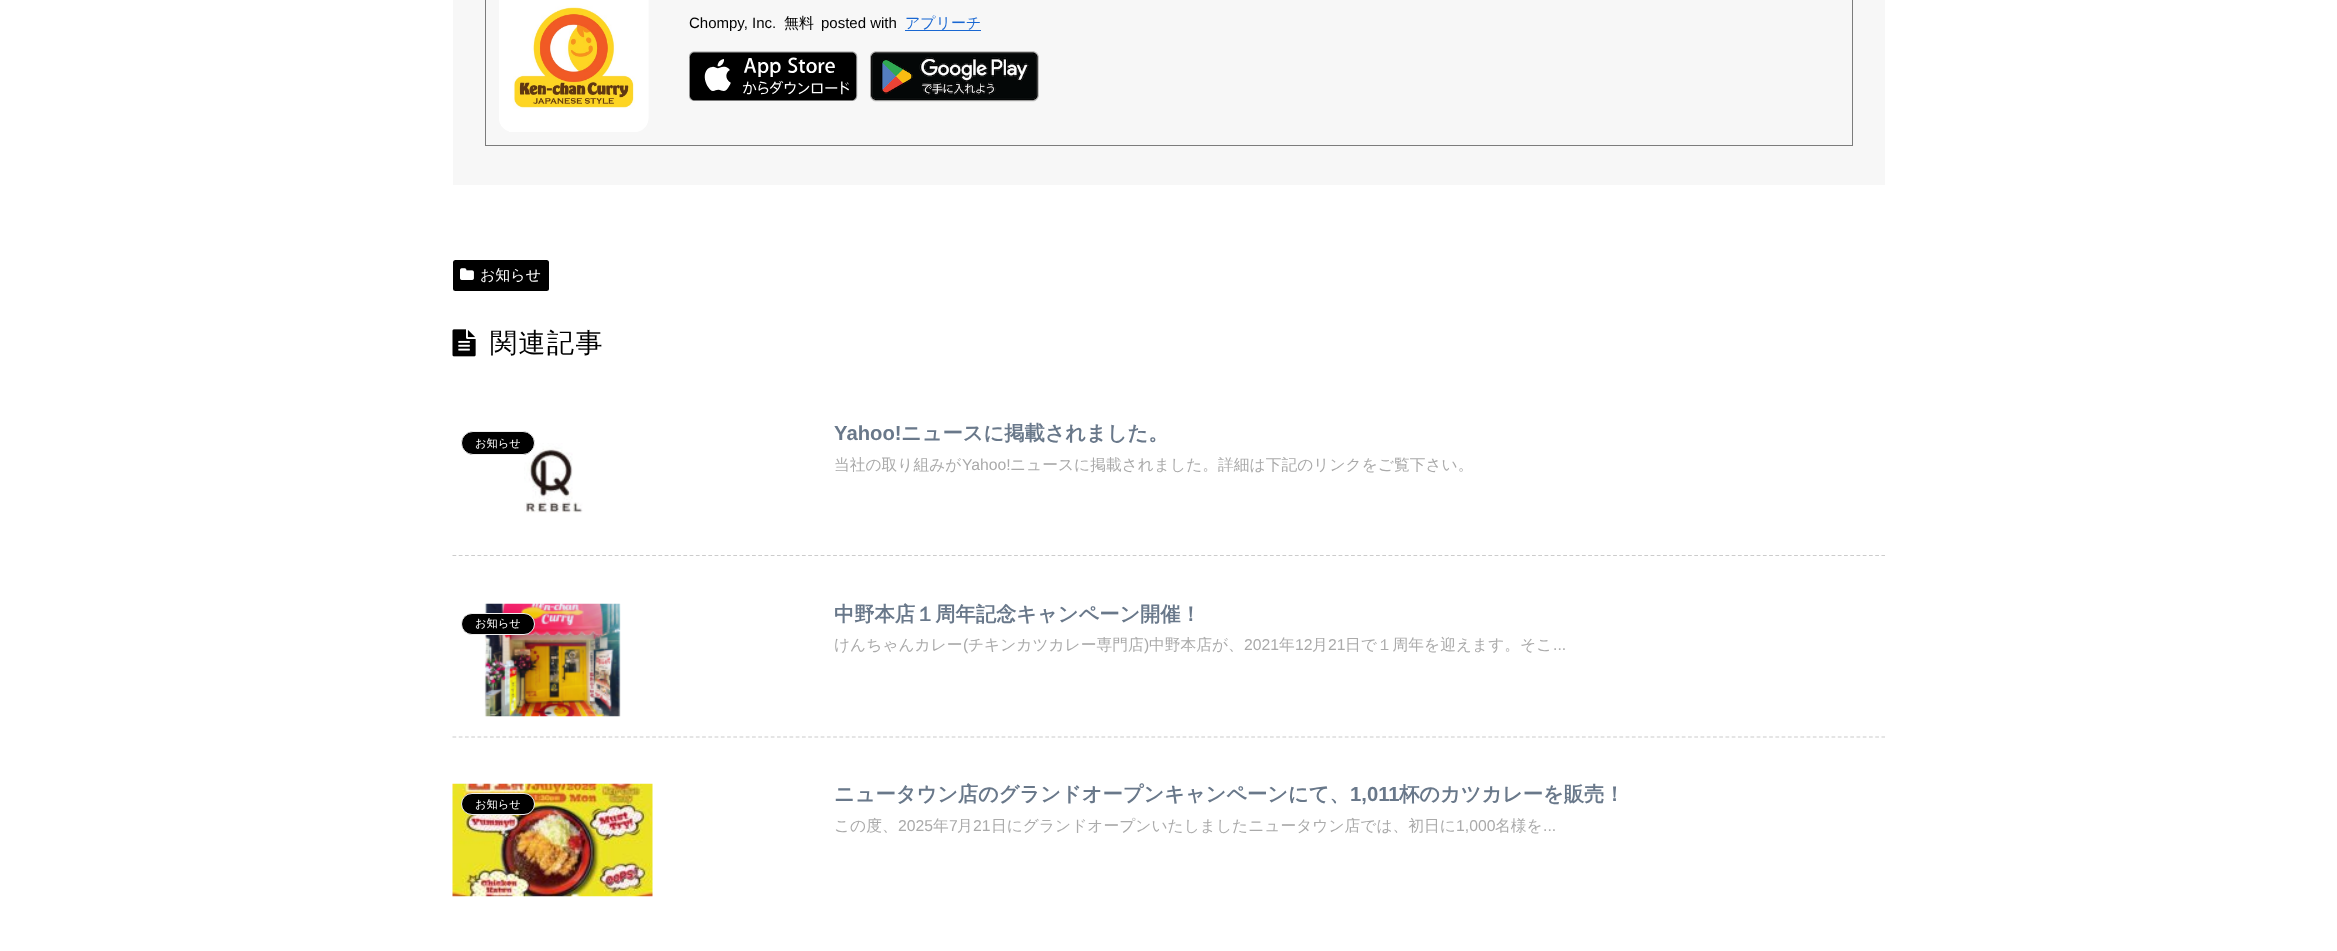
<!DOCTYPE html>
<meta charset="utf-8">
<style>body { margin: 0 } canvas { display: block }</style>
<canvas id="canvas" width="2337" height="951"></canvas>
<img id="img1" src="images/1.png" hidden>
<img id="img2" src="images/2.png" hidden>
<img id="img3" src="images/3.png" hidden>
<img id="img4" src="images/4.png" hidden>
<img id="img5" src="images/5.png" hidden>
<img id="img6" src="images/6.png" hidden>
<img id="img7" src="images/7.png" hidden>
<img id="img8" src="images/8.png" hidden>
<script>
window.onload = function () {
    const canvas = document.getElementById('canvas');
    const context = canvas.getContext('2d');
    context.miterLimit = 4;
    context.fontKerning = 'normal';

    context.fillStyle = 'rgb(255, 255, 255)';
    context.fillRect(0, 0, 2337, 951);
    context.fillStyle = 'rgb(247, 247, 247)';
    context.fillRect(453, 0, 1432, 185);
    context.strokeStyle = 'rgb(124, 124, 124)';
    context.strokeRect(485.5, -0.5, 1367, 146);
    context.drawImage(document.getElementById('img1'), 499, 0, 150, 132);
    context.fillStyle = 'rgb(25, 103, 210)';
    context.fillRect(905, 30, 76, 1);
    context.drawImage(document.getElementById('img2'), 689, 51, 169, 50);
    context.drawImage(document.getElementById('img3'), 870, 51, 169, 51);
    context.fillStyle = 'rgb(0, 0, 0)';
    context.beginPath();
    context.roundRect(453, 260, 96, 31, 2.5);
    context.fill();
    context.drawImage(document.getElementById('img4'), 460, 268, 14, 12);
    context.drawImage(document.getElementById('img5'), 452, 329, 24, 28);
    context.beginPath();
    context.moveTo(452.5, 555.5);
    context.lineTo(1885, 555.5);
    context.strokeStyle = 'rgb(204, 204, 204)';
    context.lineWidth = 1.2;
    context.setLineDash([3.75, 2.49]);
    context.stroke();
    context.drawImage(document.getElementById('img6'), 524, 443, 59, 70);
    context.beginPath();
    context.roundRect(461.5, 431.5, 73, 23, 11.5);
    context.fill();
    context.strokeStyle = 'rgb(238, 238, 238)';
    context.lineWidth = 1;
    context.setLineDash([]);
    context.stroke();
    context.beginPath();
    context.moveTo(452.5, 737);
    context.lineTo(1885, 737);
    context.strokeStyle = 'rgb(204, 204, 204)';
    context.lineWidth = 1.2;
    context.setLineDash([3.75, 2.49]);
    context.stroke();
    context.drawImage(document.getElementById('img7'), 484, 603, 137, 114);
    context.beginPath();
    context.roundRect(461.5, 613.5, 73, 21, 10.5);
    context.fill();
    context.strokeStyle = 'rgb(238, 238, 238)';
    context.lineWidth = 1;
    context.setLineDash([]);
    context.stroke();
    context.drawImage(document.getElementById('img8'), 452, 783, 201, 114);
    context.beginPath();
    context.roundRect(461.5, 793.5, 73, 21, 10.5);
    context.fill();
    context.stroke();
    context.font = '15px Liberation Sans';
    context.fillText('Chompy, Inc.', 689, 28);
    context.font = '500 15px WenQuanYi Zen Hei';
    context.fillText('無料', 784, 28);
    context.font = '15px Liberation Sans';
    context.fillText('posted with', 821, 28);
    context.font = '500 15px WenQuanYi Zen Hei';
    context.fillStyle = 'rgb(25, 103, 210)';
    context.fillText('アプリーチ', 905, 28);
    context.fillStyle = 'rgb(255, 255, 255)';
    context.fillText('お知らせ', 480, 280);
    context.letterSpacing = '1.5px';
    context.font = '500 27px WenQuanYi Zen Hei';
    context.fillStyle = 'rgb(0, 0, 0)';
    context.fillText('関連記事', 490, 352);
    context.letterSpacing = '0px';
    context.font = '500 11.25px WenQuanYi Zen Hei';
    context.fillStyle = 'rgb(255, 255, 255)';
    context.fillText('お知らせ', 475, 447);
    context.font = 'bold 20.25px Liberation Sans';
    context.fillStyle = 'rgb(105, 120, 138)';
    context.fillText('Yahoo!', 834, 440);
    context.font = 'bold 20.25px WenQuanYi Zen Hei';
    context.fillText('ニュースに掲載されました。', 901, 440);
    context.font = '500 15.75px WenQuanYi Zen Hei';
    context.fillStyle = 'rgb(170, 170, 170)';
    context.fillText('当社の取り組みが', 834, 470);
    context.font = '15.75px Liberation Sans';
    context.fillText('Yahoo!', 962, 470);
    context.font = '500 15.75px WenQuanYi Zen Hei';
    context.fillText('ニュースに掲載されました。詳細は下記のリンクをご覧下さい。', 1010, 470);
    context.font = '500 11.25px WenQuanYi Zen Hei';
    context.fillStyle = 'rgb(255, 255, 255)';
    context.fillText('お知らせ', 475, 627);
    context.font = 'bold 20.25px WenQuanYi Zen Hei';
    context.fillStyle = 'rgb(105, 120, 138)';
    context.fillText('中野本店１周年記念キャンペーン開催！', 834, 621);
    context.font = '500 15.75px WenQuanYi Zen Hei';
    context.fillStyle = 'rgb(170, 170, 170)';
    context.fillText('けんちゃんカレー', 834, 650);
    context.font = '15.75px Liberation Sans';
    context.fillText('(', 963, 650);
    context.font = '500 15.75px WenQuanYi Zen Hei';
    context.fillText('チキンカツカレー専門店', 968, 650);
    context.font = '15.75px Liberation Sans';
    context.fillText(')', 1144, 650);
    context.font = '500 15.75px WenQuanYi Zen Hei';
    context.fillText('中野本店が、', 1149, 650);
    context.font = '15.75px Liberation Sans';
    context.fillText('2021', 1244, 650);
    context.font = '500 15.75px WenQuanYi Zen Hei';
    context.fillText('年', 1279, 650);
    context.font = '15.75px Liberation Sans';
    context.fillText('12', 1295, 650);
    context.font = '500 15.75px WenQuanYi Zen Hei';
    context.fillText('月', 1312, 650);
    context.font = '15.75px Liberation Sans';
    context.fillText('21', 1328, 650);
    context.font = '500 15.75px WenQuanYi Zen Hei';
    context.fillText('日で１周年を迎えます。そこ', 1345, 650);
    context.font = '15.75px Liberation Sans';
    context.fillText('...', 1553, 650);
    context.font = '500 11.25px WenQuanYi Zen Hei';
    context.fillStyle = 'rgb(255, 255, 255)';
    context.fillText('お知らせ', 475, 808);
    context.font = 'bold 20.25px WenQuanYi Zen Hei';
    context.fillStyle = 'rgb(105, 120, 138)';
    context.fillText('ニュータウン店のグランドオープンキャンペーンにて、', 834, 801);
    context.font = 'bold 20.25px Liberation Sans';
    context.fillText('1,011', 1350, 801);
    context.font = 'bold 20.25px WenQuanYi Zen Hei';
    context.fillText('杯のカツカレーを販売！', 1399, 801);
    context.font = '500 15.75px WenQuanYi Zen Hei';
    context.fillStyle = 'rgb(170, 170, 170)';
    context.fillText('この度、', 834, 831);
    context.font = '15.75px Liberation Sans';
    context.fillText('2025', 898, 831);
    context.font = '500 15.75px WenQuanYi Zen Hei';
    context.fillText('年', 933, 831);
    context.font = '15.75px Liberation Sans';
    context.fillText('7', 949, 831);
    context.font = '500 15.75px WenQuanYi Zen Hei';
    context.fillText('月', 957, 831);
    context.font = '15.75px Liberation Sans';
    context.fillText('21', 973, 831);
    context.font = '500 15.75px WenQuanYi Zen Hei';
    context.fillText('日にグランドオープンいたしましたニュータウン店では、初日に', 991, 831);
    context.font = '15.75px Liberation Sans';
    context.fillText('1,000', 1456, 831);
    context.font = '500 15.75px WenQuanYi Zen Hei';
    context.fillText('名様を', 1495, 831);
    context.font = '15.75px Liberation Sans';
    context.fillText('...', 1543, 831);
};
</script>
